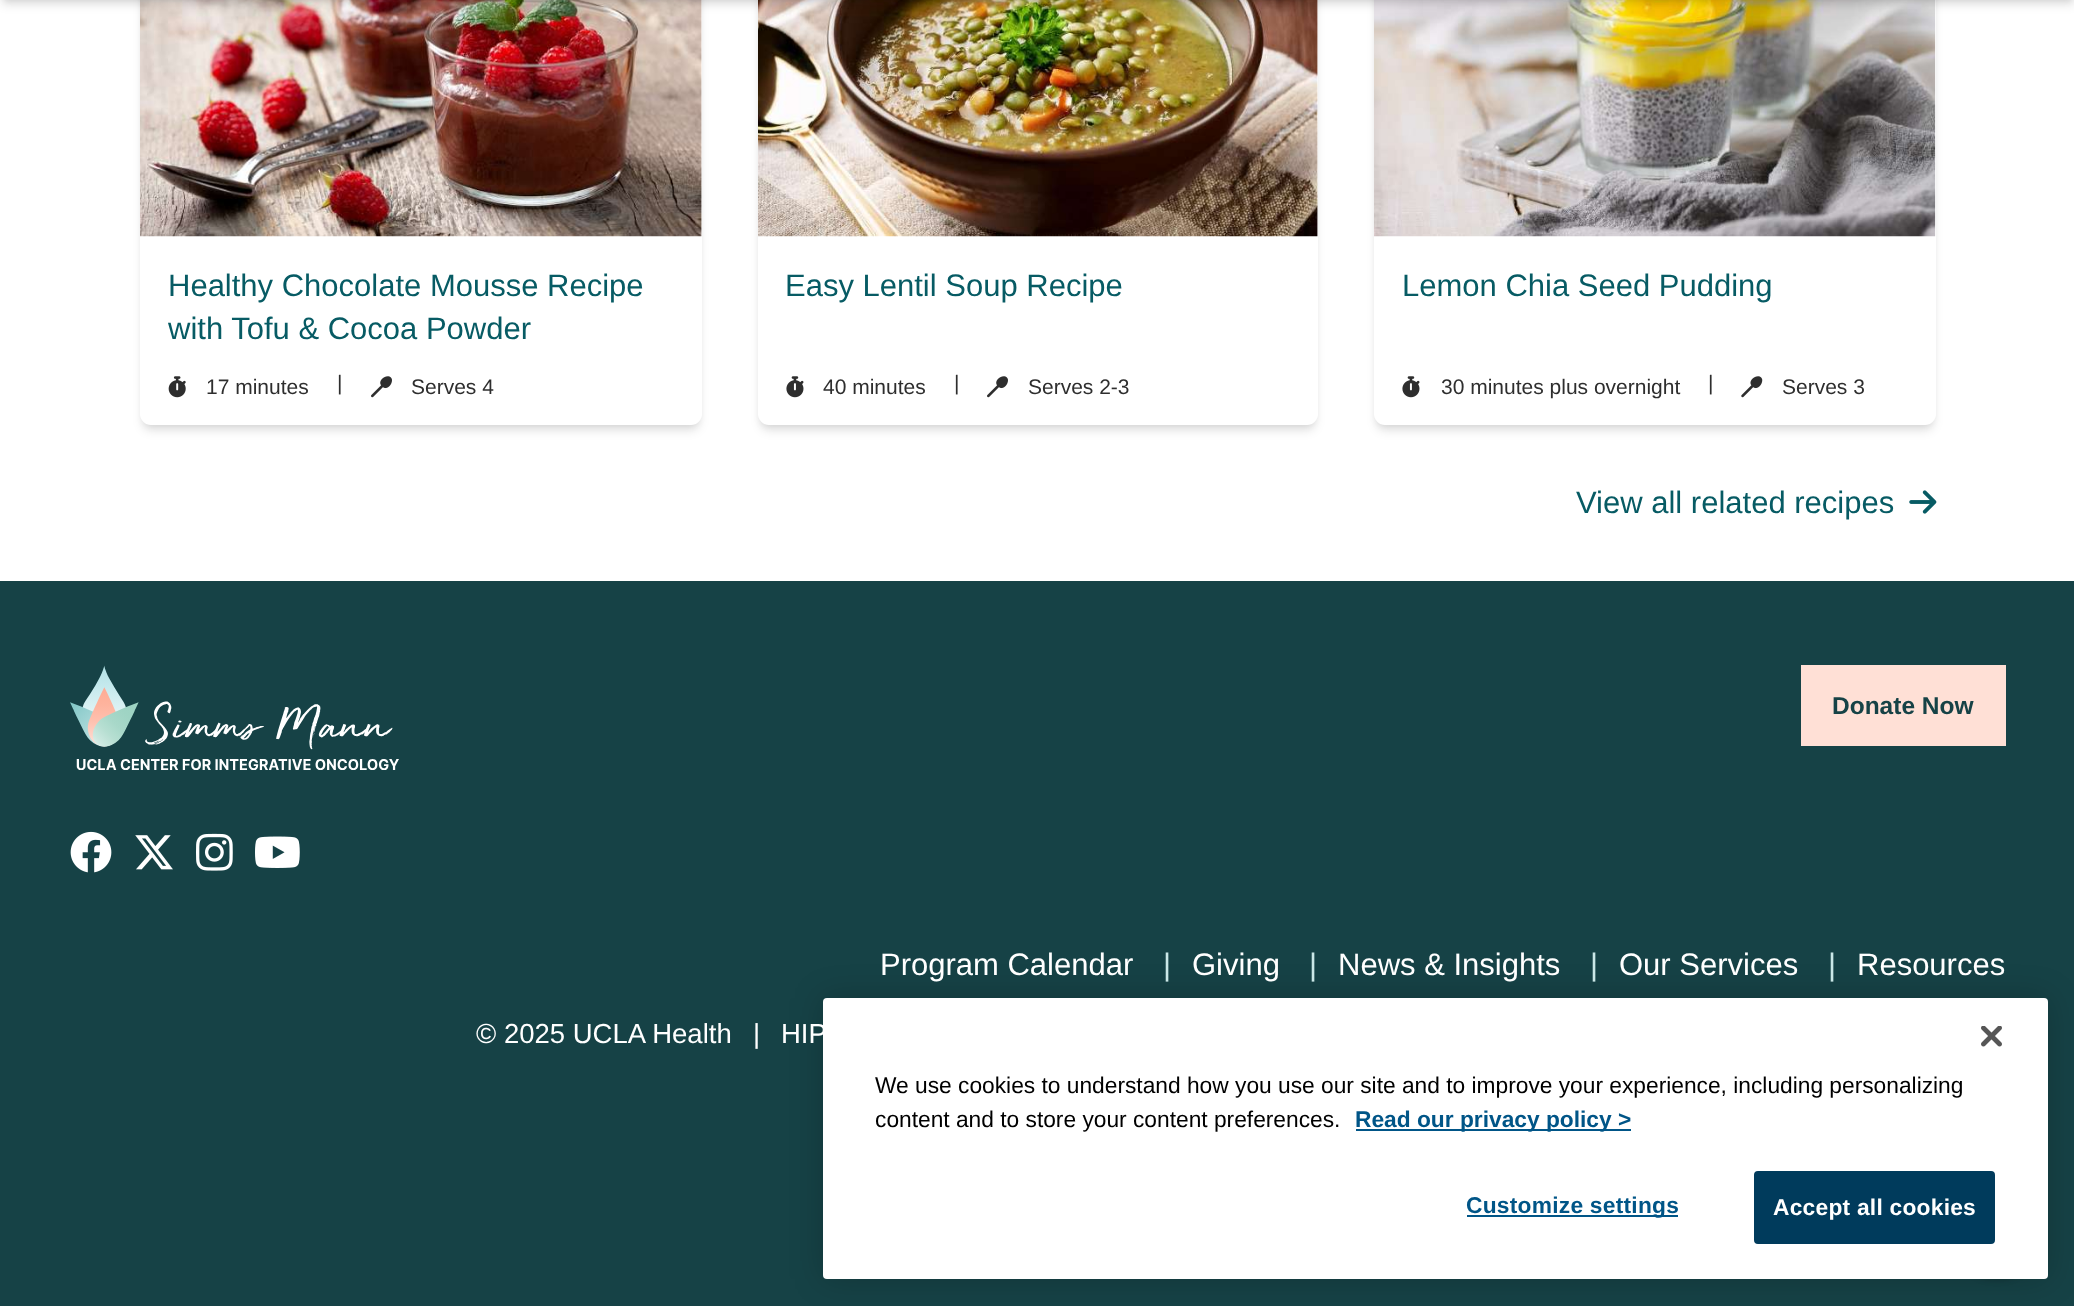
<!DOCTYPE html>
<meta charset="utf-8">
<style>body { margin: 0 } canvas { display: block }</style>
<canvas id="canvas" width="2074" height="1306"></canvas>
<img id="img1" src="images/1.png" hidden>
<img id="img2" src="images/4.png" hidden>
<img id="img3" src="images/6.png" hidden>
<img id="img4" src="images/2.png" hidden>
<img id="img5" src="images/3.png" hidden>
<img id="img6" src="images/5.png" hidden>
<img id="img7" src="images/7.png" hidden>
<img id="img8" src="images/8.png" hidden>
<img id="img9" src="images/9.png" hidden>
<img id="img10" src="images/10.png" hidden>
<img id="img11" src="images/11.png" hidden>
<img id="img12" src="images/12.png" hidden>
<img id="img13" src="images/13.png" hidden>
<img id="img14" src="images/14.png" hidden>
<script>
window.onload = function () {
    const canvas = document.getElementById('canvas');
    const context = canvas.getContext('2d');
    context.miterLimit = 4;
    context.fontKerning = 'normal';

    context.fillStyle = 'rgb(22, 66, 70)';
    context.fillRect(0, 0, 2074, 1306);
    context.fillStyle = 'rgb(255, 255, 255)';
    context.fillRect(0, 0, 2074, 581);
    context.fillStyle = 'rgba(0, 0, 0, 0.1)';
    context.filter = 'blur(3.5px)';
    context.beginPath();
    context.roundRect(144, -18, 554, 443, 7);
    context.fill();
    context.filter = 'none';
    context.filter = 'blur(5px)';
    context.beginPath();
    context.roundRect(142, -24, 558, 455, 9);
    context.fill();
    context.filter = 'none';
    context.fillStyle = 'rgb(255, 255, 255)';
    context.beginPath();
    context.roundRect(140, -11, 562, 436, 11);
    context.fill();
    context.drawImage(document.getElementById('img1'), 140, 0, 562, 237);
    context.fillStyle = 'rgba(0, 0, 0, 0.1)';
    context.filter = 'blur(3.5px)';
    context.beginPath();
    context.roundRect(761, -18, 553, 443, 7);
    context.fill();
    context.filter = 'none';
    context.filter = 'blur(5px)';
    context.beginPath();
    context.roundRect(760, -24, 556, 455, 9);
    context.fill();
    context.filter = 'none';
    context.fillStyle = 'rgb(255, 255, 255)';
    context.beginPath();
    context.roundRect(758, -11, 560, 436, 11);
    context.fill();
    context.drawImage(document.getElementById('img2'), 758, 0, 560, 237);
    context.fillStyle = 'rgba(0, 0, 0, 0.1)';
    context.filter = 'blur(3.5px)';
    context.beginPath();
    context.roundRect(1377, -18, 555, 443, 7);
    context.fill();
    context.filter = 'none';
    context.filter = 'blur(5px)';
    context.beginPath();
    context.roundRect(1376, -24, 558, 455, 9);
    context.fill();
    context.filter = 'none';
    context.fillStyle = 'rgb(255, 255, 255)';
    context.beginPath();
    context.roundRect(1374, -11, 562, 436, 11);
    context.fill();
    context.drawImage(document.getElementById('img3'), 1374, 0, 562, 237);
    context.fillStyle = 'rgba(0, 0, 0, 0.1)';
    context.filter = 'blur(3.5px)';
    context.beginPath();
    context.rect(4, -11, 2068, 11);
    context.fill();
    context.filter = 'none';
    context.filter = 'blur(5px)';
    context.beginPath();
    context.rect(2, -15, 2072, 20);
    context.fill();
    context.filter = 'none';
    context.drawImage(document.getElementById('img4'), 168, 376, 18, 22);
    context.drawImage(document.getElementById('img5'), 371, 376, 21, 22);
    context.drawImage(document.getElementById('img6'), 786, 376, 18, 22);
    context.drawImage(document.getElementById('img5'), 987, 376, 21, 22);
    context.drawImage(document.getElementById('img6'), 1402, 376, 18, 22);
    context.drawImage(document.getElementById('img7'), 1741, 376, 22, 22);
    context.drawImage(document.getElementById('img8'), 1909, 490, 28, 24);
    context.drawImage(document.getElementById('img9'), 70, 665, 329, 105);
    context.drawImage(document.getElementById('img10'), 70, 831, 42, 42);
    context.drawImage(document.getElementById('img11'), 135, 835, 38, 35);
    context.drawImage(document.getElementById('img12'), 196, 833, 37, 38);
    context.drawImage(document.getElementById('img13'), 255, 836, 45, 32);
    context.fillStyle = 'rgb(255, 224, 214)';
    context.fillRect(1801, 665, 205, 81);
    context.fillStyle = 'rgba(0, 0, 0, 0.25)';
    context.filter = 'blur(3.5px)';
    context.beginPath();
    context.roundRect(1953, 1192, 88, 87, 43.5);
    context.fill();
    context.filter = 'none';
    context.fillStyle = 'rgba(0, 0, 0, 0.2)';
    context.filter = 'blur(16px)';
    context.beginPath();
    context.roundRect(823, 998, 1225, 281, 4);
    context.fill();
    context.filter = 'none';
    context.fillStyle = 'rgb(255, 255, 255)';
    context.beginPath();
    context.roundRect(823, 998, 1225, 281, 4);
    context.fill();
    context.drawImage(document.getElementById('img14'), 1981, 1026, 21, 21);
    context.fillStyle = 'rgb(0, 85, 135)';
    context.fillRect(1356, 1129, 275, 2);
    context.fillRect(1467, 1215, 211, 2);
    context.fillStyle = 'rgb(0, 59, 92)';
    context.beginPath();
    context.roundRect(1755, 1172, 239, 71, 3);
    context.fill();
    context.strokeStyle = 'rgb(0, 59, 92)';
    context.lineWidth = 2;
    context.stroke();
    context.font = '31px Liberation Sans';
    context.fillStyle = 'rgb(7, 91, 100)';
    context.fillText('Healthy Chocolate Mousse Recipe', 168, 296);
    context.fillText('with Tofu & Cocoa Powder', 168, 339);
    context.font = '21px Liberation Sans';
    context.fillStyle = 'rgb(46, 46, 46)';
    context.fillText('17 minutes', 206, 394);
    context.fillText('|', 337, 390);
    context.fillText('Serves 4', 411, 394);
    context.font = '31px Liberation Sans';
    context.fillStyle = 'rgb(7, 91, 100)';
    context.fillText('Easy Lentil Soup Recipe', 785, 296);
    context.font = '21px Liberation Sans';
    context.fillStyle = 'rgb(46, 46, 46)';
    context.fillText('40 minutes', 823, 394);
    context.fillText('|', 954, 390);
    context.fillText('Serves 2-3', 1028, 394);
    context.font = '31px Liberation Sans';
    context.fillStyle = 'rgb(7, 91, 100)';
    context.fillText('Lemon Chia Seed Pudding', 1402, 296);
    context.font = '21px Liberation Sans';
    context.fillStyle = 'rgb(46, 46, 46)';
    context.fillText('30 minutes plus overnight', 1441, 394);
    context.fillText('|', 1708, 390);
    context.fillText('Serves 3', 1782, 394);
    context.font = '31px Liberation Sans';
    context.fillStyle = 'rgb(7, 91, 100)';
    context.fillText('View all related recipes', 1576, 513);
    context.font = 'bold 24.5px Liberation Sans';
    context.fillStyle = 'rgb(22, 66, 70)';
    context.fillText('Donate Now', 1832, 714);
    context.font = '31px Liberation Sans';
    context.fillStyle = 'rgb(255, 255, 255)';
    context.fillText('Program Calendar', 880, 975);
    context.fillStyle = 'rgb(202, 231, 231)';
    context.fillText('|', 1163, 975);
    context.fillStyle = 'rgb(255, 255, 255)';
    context.fillText('Giving', 1192, 975);
    context.fillStyle = 'rgb(202, 231, 231)';
    context.fillText('|', 1309, 975);
    context.fillStyle = 'rgb(255, 255, 255)';
    context.fillText('News & Insights', 1338, 975);
    context.fillStyle = 'rgb(202, 231, 231)';
    context.fillText('|', 1590, 975);
    context.fillStyle = 'rgb(255, 255, 255)';
    context.fillText('Our Services', 1619, 975);
    context.fillStyle = 'rgb(202, 231, 231)';
    context.fillText('|', 1828, 975);
    context.fillStyle = 'rgb(255, 255, 255)';
    context.fillText('Resources', 1857, 975);
    context.font = '27.5px Liberation Sans';
    context.fillText('© 2025 UCLA Health', 476, 1043);
    context.fillText('|', 753, 1043);
    context.fillText('HIP', 781, 1043);
    context.font = '22.75px Liberation Sans';
    context.fillStyle = 'rgb(0, 0, 0)';
    context.fillText('We use cookies to understand how you use our site and to improve your experience, including personalizing', 875, 1093);
    context.fillText('content and to store your content preferences.', 875, 1127);
    context.font = 'bold 22.75px Liberation Sans';
    context.fillStyle = 'rgb(0, 85, 135)';
    context.fillText('Read our privacy policy >', 1355, 1127);
    context.letterSpacing = '0.25px';
    context.fillText('Customize settings', 1466, 1213);
    context.fillStyle = 'rgb(255, 255, 255)';
    context.fillText('Accept all cookies', 1773, 1215);
};
</script>
